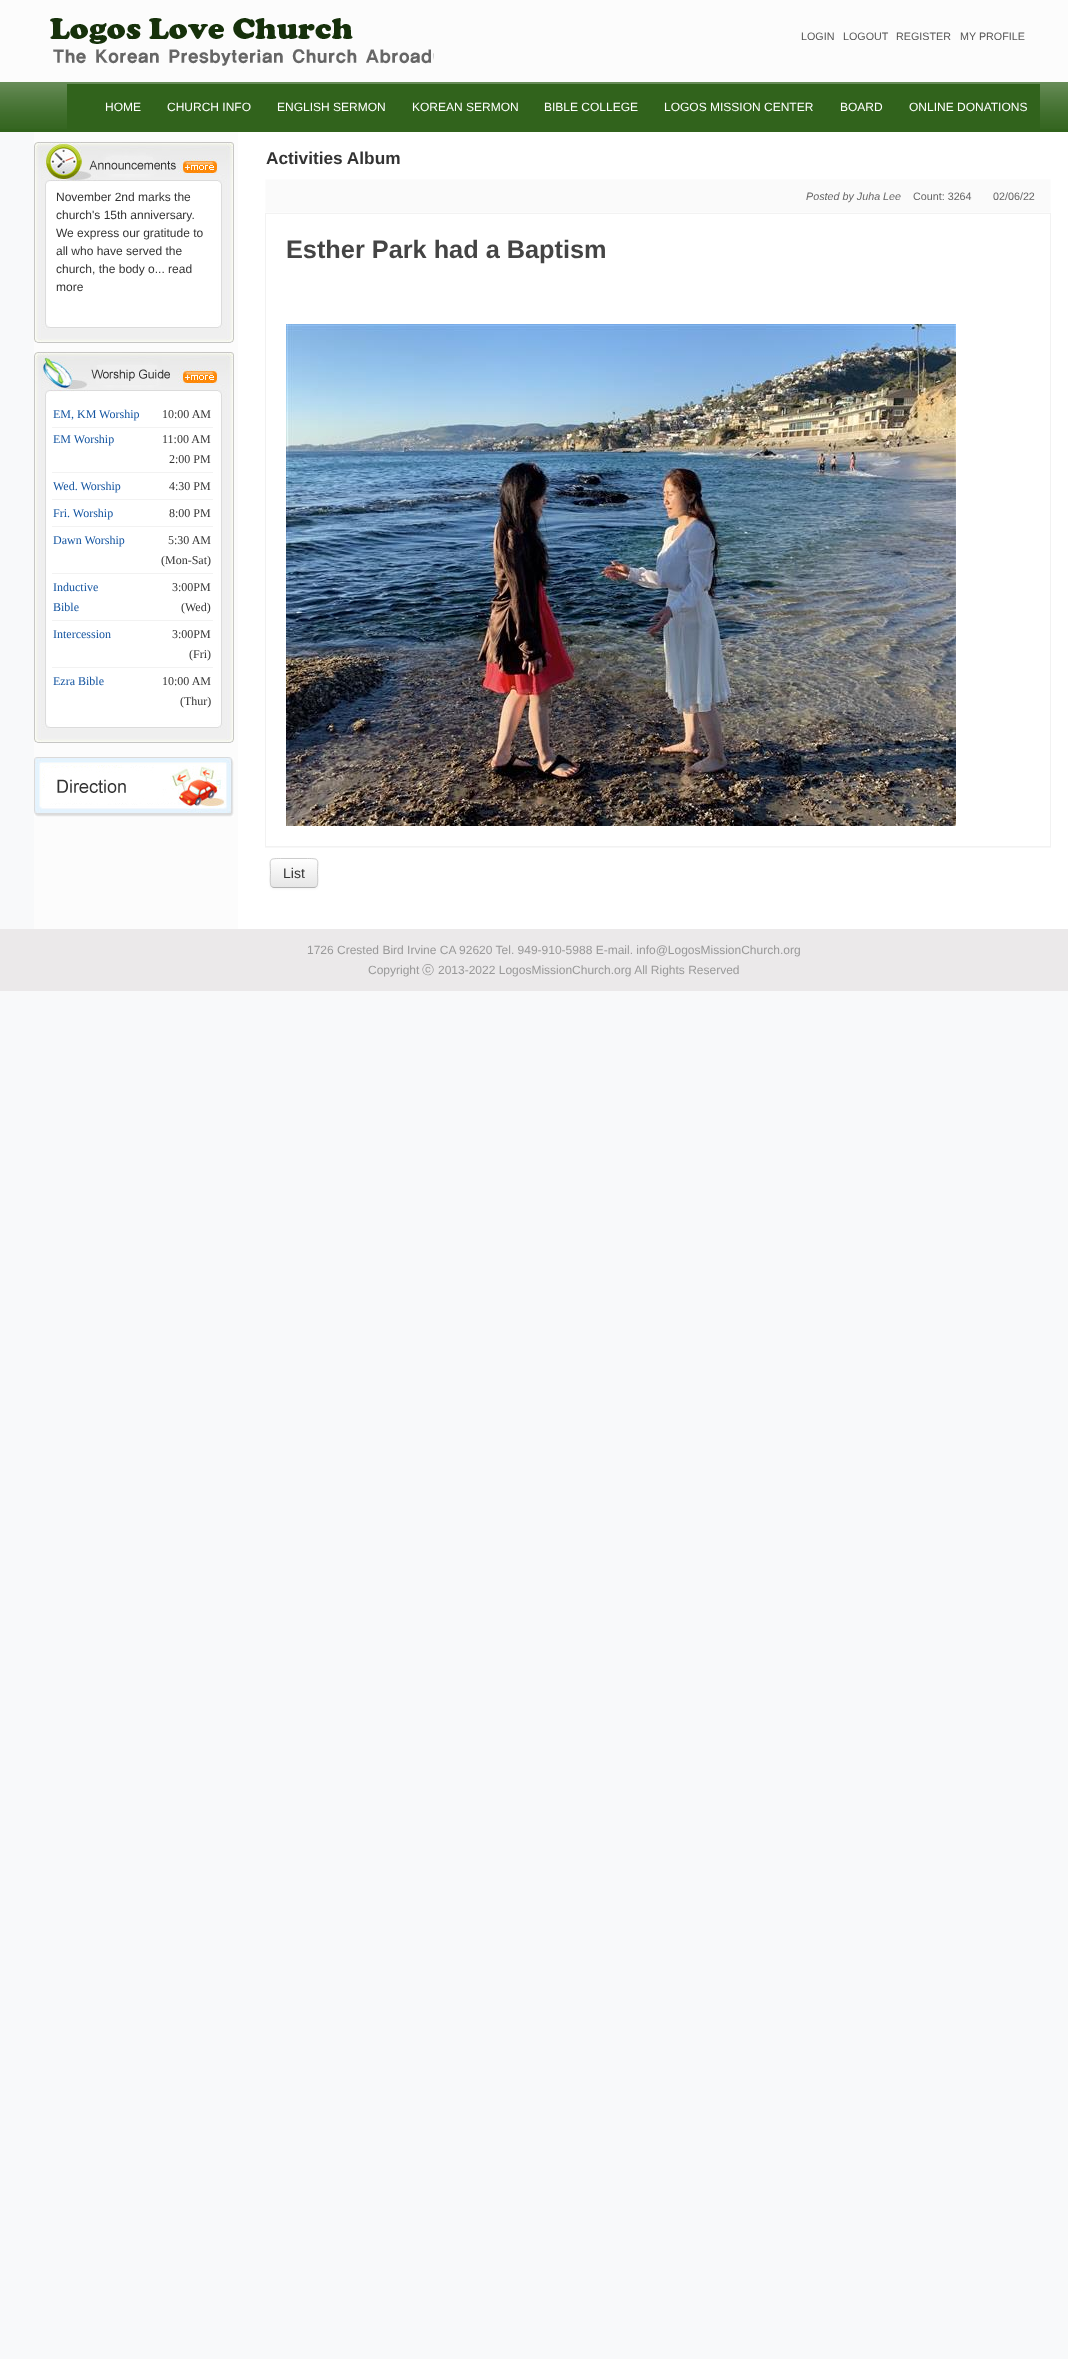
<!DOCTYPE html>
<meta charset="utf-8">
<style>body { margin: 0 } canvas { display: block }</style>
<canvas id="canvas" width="1068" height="2359"></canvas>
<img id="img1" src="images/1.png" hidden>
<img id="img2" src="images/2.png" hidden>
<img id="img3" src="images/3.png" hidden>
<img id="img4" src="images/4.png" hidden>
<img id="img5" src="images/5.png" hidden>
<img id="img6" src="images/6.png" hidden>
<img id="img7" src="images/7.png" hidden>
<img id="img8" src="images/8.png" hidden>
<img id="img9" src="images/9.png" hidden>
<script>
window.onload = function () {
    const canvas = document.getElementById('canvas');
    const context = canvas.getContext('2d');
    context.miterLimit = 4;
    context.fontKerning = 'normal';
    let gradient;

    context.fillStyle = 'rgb(248, 249, 250)';
    context.fillRect(0, 0, 1068, 2359);
    context.fillStyle = 'rgb(252, 252, 252)';
    context.fillRect(0, 0, 1068, 82);
    context.drawImage(document.getElementById('img1'), 50, 18, 384, 48);
    context.fillStyle = 'rgb(49, 99, 28)';
    context.fillRect(0, 82, 1068, 50);
    context.drawImage(document.getElementById('img2'), 0, 82, 1068, 47);
    context.fillRect(67, 84, 973, 45);
    context.fillStyle = 'rgb(255, 255, 255)';
    context.fillRect(238, 132, 830, 797);
    context.fillStyle = 'rgb(252, 252, 252)';
    context.fillRect(34, 132, 204, 797);
    context.drawImage(document.getElementById('img3'), 34, 184, 200, 138);
    context.drawImage(document.getElementById('img4'), 34, 142, 200, 42);
    context.drawImage(document.getElementById('img5'), 34, 322, 200, 21);
    context.drawImage(document.getElementById('img6'), 34, 352, 200, 46);
    context.drawImage(document.getElementById('img7'), 34, 398, 200, 324);
    context.fillStyle = 'rgb(242, 242, 242)';
    context.fillRect(52, 427, 161, 1);
    context.fillRect(52, 472, 161, 1);
    context.fillRect(52, 499, 161, 1);
    context.fillRect(52, 526, 161, 1);
    context.fillRect(52, 573, 161, 1);
    context.fillRect(52, 620, 161, 1);
    context.fillRect(52, 667, 161, 1);
    context.drawImage(document.getElementById('img5'), 34, 722, 200, 21);
    context.drawImage(document.getElementById('img8'), 34, 757, 200, 60);
    context.fillStyle = 'rgb(250, 250, 250)';
    context.beginPath();
    context.rect(265.5, 179.5, 785, 33);
    context.fill();
    context.strokeStyle = 'rgb(252, 252, 252)';
    context.stroke();
    context.fillStyle = 'rgb(242, 242, 242)';
    context.fillRect(265, 213, 786, 1);
    context.fillRect(1050, 213, 1, 634);
    context.fillRect(265, 846, 786, 1);
    context.fillRect(265, 213, 1, 634);
    context.drawImage(document.getElementById('img9'), 286, 324, 670, 502);
    context.fillStyle = 'rgb(247, 247, 247)';
    context.fillRect(265, 847, 786, 1);
    context.fillStyle = 'rgba(0, 0, 0, 0.05)';
    context.filter = 'blur(1px)';
    context.beginPath();
    context.roundRect(270, 859, 48, 30, 4);
    context.fill();
    context.filter = 'none';
    context.fillStyle = 'rgb(245, 245, 245)';
    context.beginPath();
    context.roundRect(270, 858, 48, 30, 4);
    context.fill();
    context.save();
    context.beginPath();
    context.roundRect(270, 858, 48, 30, 4);
    context.clip();
    gradient = context.createLinearGradient(294, 859, 294, 887);
    gradient.addColorStop(0, 'rgb(255, 255, 255)');
    gradient.addColorStop(1, 'rgb(230, 230, 230)');
    context.fillStyle = gradient;
    context.fillRect(270, 859, 48, 28);
    context.restore();
    context.fillStyle = 'rgb(255, 255, 255)';
    context.beginPath();
    context.moveTo(274, 860);
    context.lineTo(301, 860);
    context.bezierCurveTo(310, 860, 314, 859, 316, 861);
    context.bezierCurveTo(317, 861, 317, 862, 317, 864);
    context.bezierCurveTo(317, 857, 314, 859, 307, 859);
    context.lineTo(281, 859);
    context.bezierCurveTo(278, 859, 271, 857, 271, 862);
    context.bezierCurveTo(271, 861, 272, 860, 274, 860);
    context.closePath();
    context.moveTo(271, 885);
    context.lineTo(271, 878);
    context.closePath();
    context.fill('evenodd');
    context.beginPath();
    context.moveTo(316.5, 886.5);
    context.bezierCurveTo(316, 887, 315, 887.5, 314, 887.5);
    context.lineTo(274, 887.5);
    context.bezierCurveTo(273, 887.5, 272, 887, 271.5, 886.5);
    context.strokeStyle = 'rgb(179, 179, 179)';
    context.stroke();
    context.beginPath();
    context.moveTo(271.5, 886.5);
    context.bezierCurveTo(269.5, 884.5, 270.5, 876, 270.5, 873);
    context.bezierCurveTo(270.5, 859.5, 267.5, 858.5, 280.5, 858.5);
    context.lineTo(307.5, 858.5);
    context.bezierCurveTo(320.5, 858.5, 317.5, 859.5, 317.5, 873);
    context.bezierCurveTo(317.5, 876, 318.5, 884.5, 316.5, 886.5);
    context.strokeStyle = 'rgb(204, 204, 204)';
    context.stroke();
    context.fillStyle = 'rgb(235, 233, 234)';
    context.fillRect(0, 929, 1068, 62);
    context.font = '10.75px Liberation Sans';
    context.fillStyle = 'rgb(85, 85, 85)';
    context.fillText('LOGIN', 801, 40);
    context.fillText('LOGOUT', 843, 40);
    context.fillText('REGISTER', 896, 40);
    context.fillText('MY PROFILE', 960, 40);
    context.font = '12px Liberation Sans';
    context.fillStyle = 'rgb(255, 255, 255)';
    context.fillText('HOME', 105, 111);
    context.fillText('CHURCH INFO', 167, 111);
    context.fillText('ENGLISH SERMON', 277, 111);
    context.fillText('KOREAN SERMON', 412, 111);
    context.fillText('BIBLE COLLEGE', 544, 111);
    context.fillText('LOGOS MISSION CENTER', 664, 111);
    context.fillText('BOARD', 840, 111);
    context.fillText('ONLINE DONATIONS', 909, 111);
    context.fillStyle = 'rgb(51, 51, 51)';
    context.fillText('November 2nd marks the', 56, 201);
    context.fillText('church\'s 15th anniversary.', 56, 219);
    context.fillText('We express our gratitude to', 56, 237);
    context.fillText('all who have served the', 56, 255);
    context.fillText('church, the body o... read', 56, 273);
    context.fillText('more', 56, 291);
    context.font = '12px Liberation Serif';
    context.fillStyle = 'rgb(19, 84, 160)';
    context.fillText('EM, KM Worship', 53, 418);
    context.fillStyle = 'rgb(51, 51, 51)';
    context.fillText('10:00 AM', 162, 418);
    context.fillStyle = 'rgb(19, 84, 160)';
    context.fillText('EM Worship', 53, 443);
    context.fillStyle = 'rgb(51, 51, 51)';
    context.fillText('11:00 AM', 162, 443);
    context.fillText('2:00 PM', 169, 463);
    context.fillStyle = 'rgb(19, 84, 160)';
    context.fillText('Wed. Worship', 53, 490);
    context.fillStyle = 'rgb(51, 51, 51)';
    context.fillText('4:30 PM', 169, 490);
    context.fillStyle = 'rgb(19, 84, 160)';
    context.fillText('Fri. Worship', 53, 517);
    context.fillStyle = 'rgb(51, 51, 51)';
    context.fillText('8:00 PM', 169, 517);
    context.fillStyle = 'rgb(19, 84, 160)';
    context.fillText('Dawn Worship', 53, 544);
    context.fillStyle = 'rgb(51, 51, 51)';
    context.fillText('5:30 AM', 168, 544);
    context.fillText('(Mon-Sat)', 161, 564);
    context.fillStyle = 'rgb(19, 84, 160)';
    context.fillText('Inductive', 53, 591);
    context.fillText('Bible', 53, 611);
    context.fillStyle = 'rgb(51, 51, 51)';
    context.fillText('3:00PM', 172, 591);
    context.fillText('(Wed)', 181, 611);
    context.fillStyle = 'rgb(19, 84, 160)';
    context.fillText('Intercession', 53, 638);
    context.fillStyle = 'rgb(51, 51, 51)';
    context.fillText('3:00PM', 172, 638);
    context.fillText('(Fri)', 189, 658);
    context.fillStyle = 'rgb(19, 84, 160)';
    context.fillText('Ezra Bible', 53, 685);
    context.fillStyle = 'rgb(51, 51, 51)';
    context.fillText('10:00 AM', 162, 685);
    context.fillText('(Thur)', 180, 705);
    context.font = 'bold 17.25px Liberation Sans';
    context.fillText('Activities Album', 266, 164);
    context.font = 'italic 10.75px Liberation Sans';
    context.fillStyle = 'rgb(102, 102, 102)';
    context.fillText('Posted by Juha Lee', 806, 200);
    context.font = '10.75px Liberation Sans';
    context.fillText('Count: 3264', 913, 200);
    context.fillText('02/06/22', 993, 200);
    context.font = 'bold 25.3px Liberation Sans';
    context.fillStyle = 'rgb(68, 68, 68)';
    context.fillText('Esther Park had a Baptism', 286, 258);
    context.font = '14px Liberation Sans';
    context.fillStyle = 'rgb(51, 51, 51)';
    context.fillText('List', 283, 878);
    context.font = '12px Liberation Sans';
    context.fillStyle = 'rgb(153, 153, 153)';
    context.fillText('1726 Crested Bird Irvine CA 92620 Tel. 949-910-5988 E-mail. info@LogosMissionChurch.org', 307, 954);
    context.fillText('Copyright', 368, 974);
    context.font = '500 12px WenQuanYi Zen Hei';
    context.fillText('ⓒ', 422, 974);
    context.font = '12px Liberation Sans';
    context.fillText('2013-2022 LogosMissionChurch.org All Rights Reserved', 438, 974);
};
</script>
